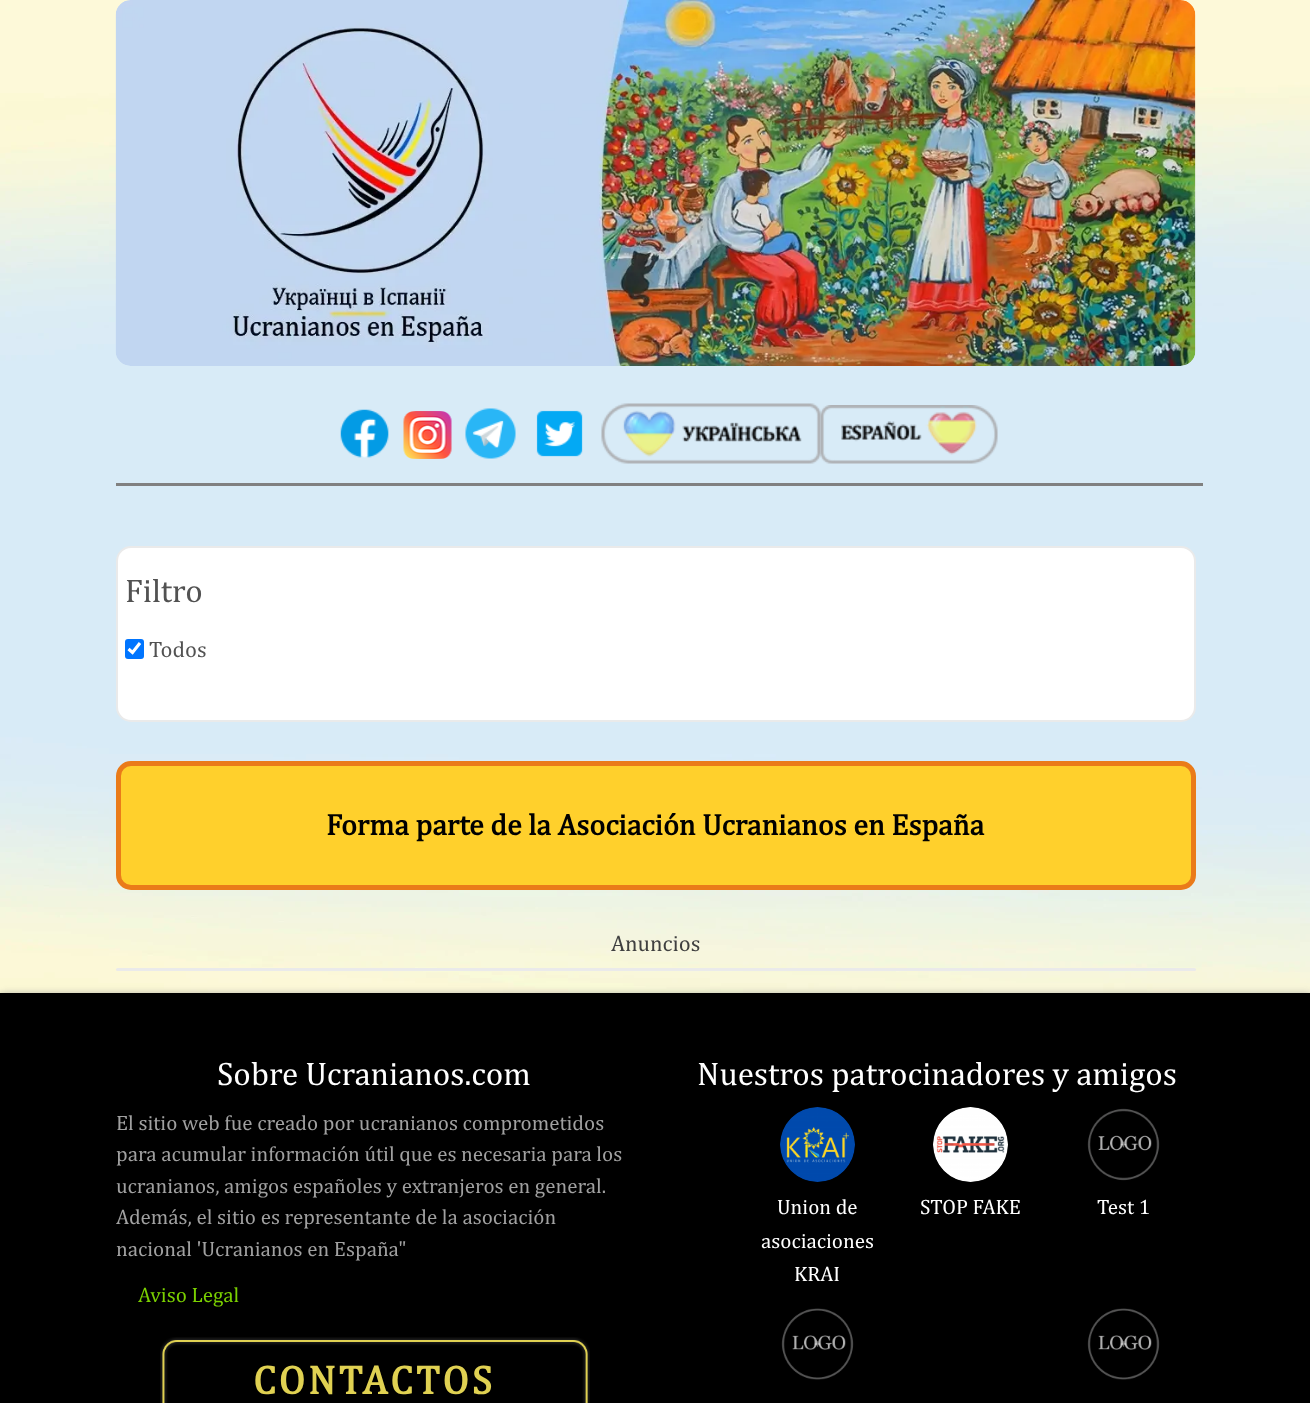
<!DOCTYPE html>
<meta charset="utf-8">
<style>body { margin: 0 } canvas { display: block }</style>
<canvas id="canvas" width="1310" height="1403"></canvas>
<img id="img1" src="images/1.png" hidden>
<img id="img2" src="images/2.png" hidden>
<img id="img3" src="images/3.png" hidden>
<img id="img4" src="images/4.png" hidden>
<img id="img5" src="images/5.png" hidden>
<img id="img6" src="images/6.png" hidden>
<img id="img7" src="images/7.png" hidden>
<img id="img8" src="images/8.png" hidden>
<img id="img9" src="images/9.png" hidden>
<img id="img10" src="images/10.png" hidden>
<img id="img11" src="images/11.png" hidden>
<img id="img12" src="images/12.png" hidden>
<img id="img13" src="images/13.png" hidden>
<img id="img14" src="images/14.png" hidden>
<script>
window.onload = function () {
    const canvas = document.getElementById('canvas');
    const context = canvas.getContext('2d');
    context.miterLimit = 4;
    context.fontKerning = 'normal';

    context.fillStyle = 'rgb(255, 255, 255)';
    context.fillRect(0, 0, 1310, 1403);
    context.drawImage(document.getElementById('img1'), 0, 0, 1310, 993);
    context.drawImage(document.getElementById('img2'), 115, 0, 1081, 366);
    context.fillStyle = 'rgb(128, 128, 128)';
    context.fillRect(116, 483, 1087, 3);
    context.drawImage(document.getElementById('img3'), 340, 409, 49, 49);
    context.drawImage(document.getElementById('img4'), 403, 411, 49, 48);
    context.drawImage(document.getElementById('img5'), 465, 408, 51, 51);
    context.drawImage(document.getElementById('img6'), 536, 410, 47, 47);
    context.drawImage(document.getElementById('img7'), 601, 403, 220, 61);
    context.drawImage(document.getElementById('img8'), 820, 405, 178, 59);
    context.fillStyle = 'rgb(255, 255, 255)';
    context.beginPath();
    context.roundRect(117, 547, 1078, 174, 14);
    context.fill();
    context.strokeStyle = 'rgb(234, 234, 234)';
    context.lineWidth = 2;
    context.stroke();
    context.fillStyle = 'rgb(0, 117, 255)';
    context.beginPath();
    context.roundRect(125, 639, 19, 20, 3);
    context.fill();
    context.beginPath();
    context.moveTo(128.5, 649);
    context.lineTo(132.5, 652.5);
    context.lineTo(140, 643);
    context.strokeStyle = 'rgb(255, 255, 255)';
    context.lineWidth = 3.1;
    context.stroke();
    context.fillStyle = 'rgb(255, 208, 44)';
    context.beginPath();
    context.roundRect(118.5, 763.5, 1075, 124, 12.5);
    context.fill();
    context.strokeStyle = 'rgb(234, 123, 25)';
    context.lineWidth = 5;
    context.stroke();
    context.fillStyle = 'rgb(234, 234, 234)';
    context.beginPath();
    context.roundRect(116, 968, 1080, 3, 1.5);
    context.fill();
    context.fillStyle = 'rgb(151, 151, 151)';
    context.filter = 'blur(4px)';
    context.beginPath();
    context.rect(0, 995, 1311, 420);
    context.fill();
    context.filter = 'none';
    context.fillStyle = 'rgb(0, 0, 0)';
    context.fillRect(0, 993, 1310, 410);
    context.drawImage(document.getElementById('img9'), 160, 1337, 430, 66);
    context.drawImage(document.getElementById('img10'), 780, 1107, 75, 75);
    context.drawImage(document.getElementById('img11'), 933, 1107, 75, 75);
    context.drawImage(document.getElementById('img12'), 1087, 1108, 73, 73);
    context.drawImage(document.getElementById('img13'), 781, 1308, 73, 72);
    context.drawImage(document.getElementById('img14'), 1087, 1308, 73, 72);
    context.font = '33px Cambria';
    context.fillStyle = 'rgb(82, 82, 82)';
    context.fillText('Filtro', 125, 602);
    context.font = '22.5px Cambria';
    context.fillText('Todos', 149, 657);
    context.font = 'bold 30px Cambria';
    context.fillStyle = 'rgb(1, 0, 0)';
    context.fillText('Forma parte de la Asociación Ucranianos en España', 326, 835);
    context.font = '22.5px Cambria';
    context.fillStyle = 'rgb(64, 64, 64)';
    context.fillText('Anuncios', 611, 951);
    context.font = '33px Cambria';
    context.fillStyle = 'rgb(255, 255, 255)';
    context.fillText('Sobre Ucranianos.com', 217, 1085);
    context.font = '21px Cambria';
    context.fillStyle = 'rgb(160, 160, 160)';
    context.fillText('El sitio web fue creado por ucranianos comprometidos', 116, 1130);
    context.fillText('para acumular información útil que es necesaria para los', 116, 1161);
    context.fillText('ucranianos, amigos españoles y extranjeros en general.', 116, 1193);
    context.fillText('Además, el sitio es representante de la asociación', 116, 1224);
    context.fillText('nacional \'Ucranianos en España"', 116, 1256);
    context.fillStyle = 'rgb(122, 207, 0)';
    context.fillText('Aviso Legal', 138, 1302);
    context.letterSpacing = '3px';
    context.font = 'bold 40.5px Cambria';
    context.fillStyle = 'rgb(224, 209, 82)';
    context.fillText('CONTACTOS', 253, 1394);
    context.letterSpacing = '0px';
    context.font = '33px Cambria';
    context.fillStyle = 'rgb(255, 255, 255)';
    context.fillText('Nuestros patrocinadores y amigos', 697, 1085);
    context.font = '21px Cambria';
    context.fillText('Union de', 777, 1214);
    context.fillText('asociaciones', 761, 1248);
    context.fillText('KRAI', 794, 1281);
    context.fillText('STOP FAKE', 920, 1214);
    context.fillText('Test 1', 1097, 1214);
};
</script>
